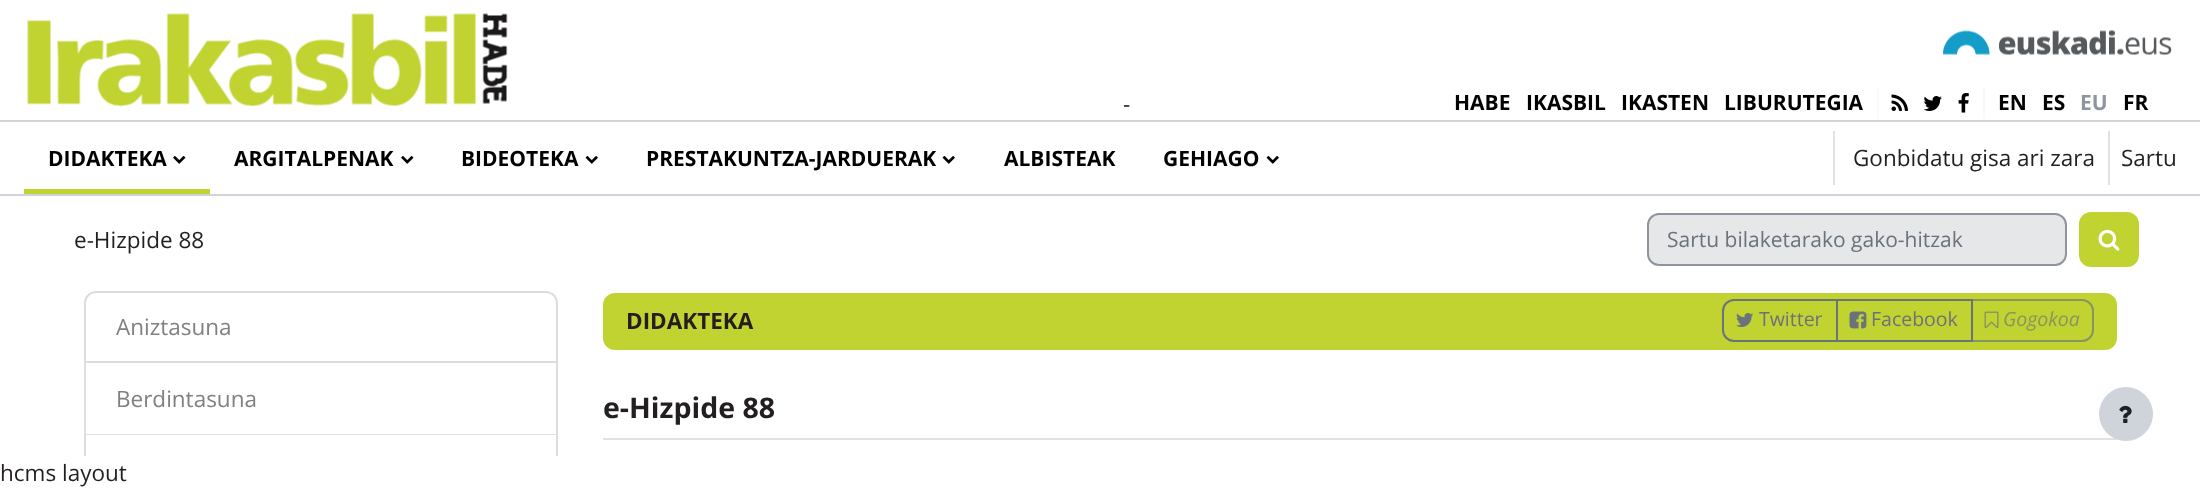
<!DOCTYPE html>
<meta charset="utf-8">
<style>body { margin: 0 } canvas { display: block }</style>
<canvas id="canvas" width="2200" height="488"></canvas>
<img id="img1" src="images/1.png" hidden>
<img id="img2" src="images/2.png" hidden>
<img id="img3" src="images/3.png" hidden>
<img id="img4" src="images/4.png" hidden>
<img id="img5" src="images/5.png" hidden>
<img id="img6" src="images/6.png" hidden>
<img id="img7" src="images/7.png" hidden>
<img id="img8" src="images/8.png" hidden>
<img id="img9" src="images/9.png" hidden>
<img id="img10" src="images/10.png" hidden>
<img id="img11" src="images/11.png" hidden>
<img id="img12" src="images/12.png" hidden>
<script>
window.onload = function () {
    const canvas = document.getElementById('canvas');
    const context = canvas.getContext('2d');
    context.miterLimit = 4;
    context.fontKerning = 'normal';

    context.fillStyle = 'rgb(255, 255, 255)';
    context.fillRect(0, 0, 2200, 488);
    context.drawImage(document.getElementById('img1'), 27, 13, 481, 94);
    context.drawImage(document.getElementById('img2'), 1943, 30, 229, 25);
    context.fillStyle = 'rgb(248, 249, 250)';
    context.fillRect(1877, 87, 2, 32);
    context.drawImage(document.getElementById('img3'), 1891, 94, 17, 17);
    context.drawImage(document.getElementById('img4'), 1923, 96, 19, 15);
    context.drawImage(document.getElementById('img5'), 1958, 93, 11, 20);
    context.fillRect(1983, 87, 2, 32);
    context.fillStyle = 'rgb(206, 212, 218)';
    context.fillRect(0, 120, 2200, 2);
    context.fillRect(0, 194, 2200, 2);
    context.fillStyle = 'rgb(193, 211, 49)';
    context.fillRect(24, 189, 186, 5);
    context.drawImage(document.getElementById('img6'), 173, 156, 13, 8);
    context.drawImage(document.getElementById('img6'), 401, 156, 13, 8);
    context.drawImage(document.getElementById('img7'), 585, 156, 13, 8);
    context.drawImage(document.getElementById('img7'), 942, 156, 13, 8);
    context.drawImage(document.getElementById('img7'), 1266, 156, 13, 8);
    context.fillStyle = 'rgb(222, 226, 230)';
    context.fillRect(1833, 131, 2, 54);
    context.fillRect(2108, 131, 2, 54);
    context.fillStyle = 'rgb(230, 231, 232)';
    context.beginPath();
    context.roundRect(1648, 214, 418, 51, 11);
    context.fill();
    context.strokeStyle = 'rgb(143, 149, 158)';
    context.lineWidth = 2;
    context.stroke();
    context.fillStyle = 'rgb(193, 211, 49)';
    context.beginPath();
    context.roundRect(2080, 213, 58, 53, 11);
    context.fill();
    context.strokeStyle = 'rgb(193, 211, 49)';
    context.stroke();
    context.drawImage(document.getElementById('img8'), 2098, 229, 22, 22);
    context.beginPath();
    context.roundRect(85, 292, 472, 70, [11, 11, 0, 0]);
    context.strokeStyle = 'rgb(221, 221, 222)';
    context.stroke();
    context.fillStyle = 'rgb(221, 221, 222)';
    context.beginPath();
    context.moveTo(558, 363);
    context.lineTo(558, 435);
    context.lineTo(556, 434);
    context.lineTo(556, 363);
    context.closePath();
    context.fill();
    context.fillStyle = 'rgba(0, 0, 0, 0.12)';
    context.beginPath();
    context.moveTo(558, 435);
    context.lineTo(84, 435);
    context.lineTo(86, 434);
    context.lineTo(556, 434);
    context.closePath();
    context.fill();
    context.beginPath();
    context.moveTo(84, 435);
    context.lineTo(84, 363);
    context.lineTo(86, 363);
    context.lineTo(86, 434);
    context.closePath();
    context.fill();
    context.save();
    context.beginPath();
    context.rect(0, 210, 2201, 246);
    context.clip();
    context.fillStyle = 'rgb(221, 221, 222)';
    context.beginPath();
    context.moveTo(558, 435);
    context.lineTo(558, 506);
    context.lineTo(556, 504);
    context.lineTo(556, 435);
    context.closePath();
    context.fill();
    context.beginPath();
    context.moveTo(84, 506);
    context.lineTo(84, 435);
    context.lineTo(86, 435);
    context.lineTo(86, 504);
    context.closePath();
    context.fill();
    context.restore();
    context.fillStyle = 'rgb(193, 211, 49)';
    context.beginPath();
    context.roundRect(603, 293, 1514, 57, 12);
    context.fill();
    context.beginPath();
    context.roundRect(1723, 300, 114, 41, [11, 0, 0, 11]);
    context.strokeStyle = 'rgb(106, 115, 123)';
    context.stroke();
    context.drawImage(document.getElementById('img9'), 1736, 313, 17, 14);
    context.strokeRect(1837, 300, 135, 41);
    context.drawImage(document.getElementById('img10'), 1849, 311, 18, 18);
    context.beginPath();
    context.roundRect(1972, 300, 121, 41, [0, 11, 11, 0]);
    context.strokeStyle = 'rgba(106, 115, 123, 0.65)';
    context.stroke();
    context.drawImage(document.getElementById('img11'), 1984, 311, 15, 18);
    context.fillStyle = 'rgb(225, 225, 225)';
    context.fillRect(603, 438, 1514, 2);
    context.fillStyle = 'rgb(206, 212, 218)';
    context.beginPath();
    context.arc(2126, 414, 27, 0, 2 * Math.PI);
    context.fill();
    context.drawImage(document.getElementById('img12'), 2119, 405, 13, 18);
    context.font = '22.5px Open Sans';
    context.fillStyle = 'rgb(35, 31, 32)';
    context.fillText('-', 1123, 112);
    context.font = 'bold 21px Open Sans';
    context.fillStyle = 'rgb(0, 0, 0)';
    context.fillText('HABE', 1454, 110);
    context.fillText('IKASBIL', 1526, 110);
    context.fillText('IKASTEN', 1621, 110);
    context.fillText('LIBURUTEGIA', 1724, 110);
    context.fillText('EN', 1998, 110);
    context.fillText('ES', 2042, 110);
    context.fillStyle = 'rgb(143, 149, 158)';
    context.fillText('EU', 2080, 110);
    context.fillStyle = 'rgb(0, 0, 0)';
    context.fillText('FR', 2123, 110);
    context.fillText('DIDAKTEKA', 48, 166);
    context.fillText('ARGITALPENAK', 234, 166);
    context.fillText('BIDEOTEKA', 461, 166);
    context.fillText('PRESTAKUNTZA-JARDUERAK', 646, 166);
    context.fillText('ALBISTEAK', 1004, 166);
    context.fillText('GEHIAGO', 1163, 166);
    context.font = '22.5px Open Sans';
    context.fillStyle = 'rgb(35, 31, 32)';
    context.fillText('Gonbidatu gisa ari zara', 1853, 166);
    context.fillText('Sartu', 2121, 166);
    context.fillText('e-Hizpide 88', 74, 248);
    context.font = '21px Open Sans';
    context.fillStyle = 'rgb(106, 115, 123)';
    context.fillText('Sartu bilaketarako gako-hitzak', 1667, 247);
    context.font = '22.5px Open Sans';
    context.fillStyle = 'rgb(129, 129, 130)';
    context.fillText('Aniztasuna', 116, 335);
    context.fillText('Berdintasuna', 116, 407);
    context.font = 'bold 22.5px Open Sans';
    context.fillStyle = 'rgb(35, 31, 32)';
    context.fillText('DIDAKTEKA', 626, 329);
    context.font = '19.5px Open Sans';
    context.fillStyle = 'rgb(106, 115, 123)';
    context.fillText('Twitter', 1759, 326);
    context.fillText('Facebook', 1871, 326);
    context.font = 'italic 19.5px Open Sans';
    context.fillStyle = 'rgb(136, 149, 97)';
    context.fillText('Gogokoa', 2003, 326);
    context.font = 'bold 28.5px Open Sans';
    context.fillStyle = 'rgb(35, 31, 32)';
    context.fillText('e-Hizpide 88', 603, 418);
    context.font = '22.5px Open Sans';
    context.fillText('hcms layout', 0, 481);
};
</script>
